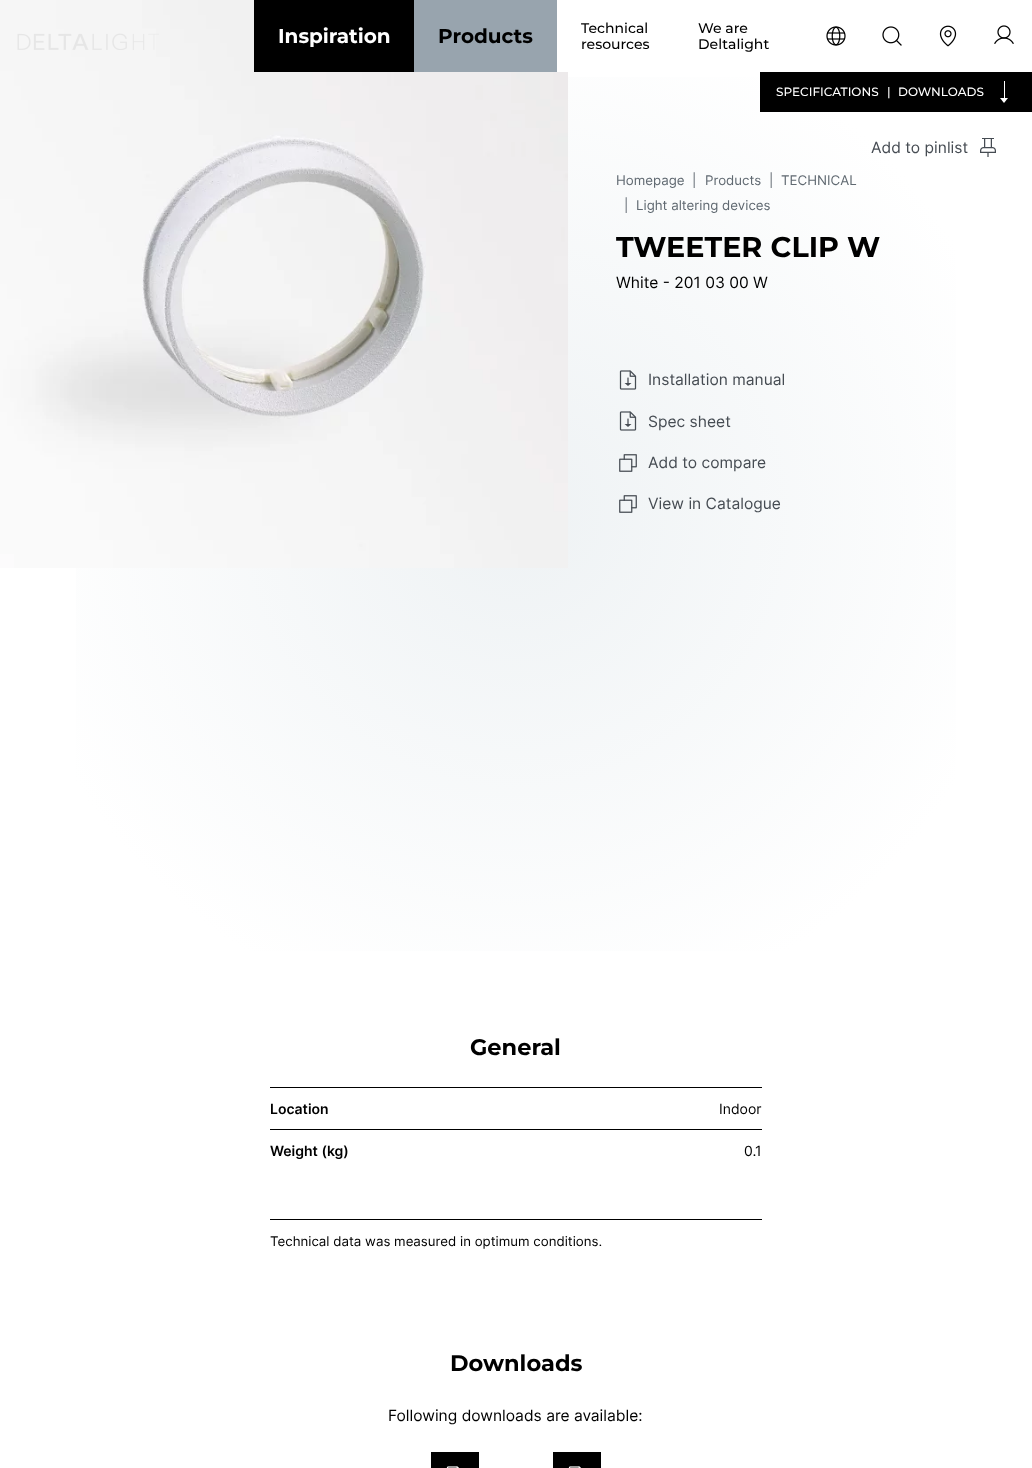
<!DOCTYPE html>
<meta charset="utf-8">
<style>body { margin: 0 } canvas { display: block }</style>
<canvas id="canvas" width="1032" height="1468"></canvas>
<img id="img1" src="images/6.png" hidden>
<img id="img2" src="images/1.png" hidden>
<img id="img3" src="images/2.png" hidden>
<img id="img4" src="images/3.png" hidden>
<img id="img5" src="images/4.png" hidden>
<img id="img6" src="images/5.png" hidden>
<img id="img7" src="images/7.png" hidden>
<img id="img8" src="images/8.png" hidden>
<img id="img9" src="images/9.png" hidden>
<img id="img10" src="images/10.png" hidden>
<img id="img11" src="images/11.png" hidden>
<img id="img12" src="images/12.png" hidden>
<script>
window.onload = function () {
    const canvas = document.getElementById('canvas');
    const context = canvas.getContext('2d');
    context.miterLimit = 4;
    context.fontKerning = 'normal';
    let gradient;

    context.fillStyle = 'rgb(255, 255, 255)';
    context.fillRect(0, 0, 1032, 1468);
    gradient = context.createRadialGradient(516, 516, 0, 516, 516, 516);
    gradient.addColorStop(0, 'rgb(238, 242, 244)');
    gradient.addColorStop(1, 'rgb(255, 255, 255)');
    context.fillStyle = gradient;
    context.beginPath();
    context.rect(76, 77, 880, 874);
    context.save();
    context.clip();
    context.scale(1, 514 / 516);
    context.fillRect(0, 0, 1032, 1474);
    context.restore();
    context.drawImage(document.getElementById('img1'), 0, 0, 568, 568);
    context.drawImage(document.getElementById('img2'), 17, 33, 142, 17);
    context.fillStyle = 'rgb(255, 255, 255)';
    context.fillRect(557, 0, 11, 72);
    context.fillStyle = 'rgb(0, 0, 0)';
    context.fillRect(254, 0, 160, 72);
    context.fillStyle = 'rgb(152, 164, 174)';
    context.fillRect(414, 0, 143, 72);
    context.drawImage(document.getElementById('img3'), 826, 26, 20, 20);
    context.drawImage(document.getElementById('img4'), 882, 26, 20, 20);
    context.drawImage(document.getElementById('img5'), 939, 25, 18, 22);
    context.drawImage(document.getElementById('img6'), 994, 25, 20, 19);
    context.fillStyle = 'rgb(0, 0, 0)';
    context.fillRect(760, 72, 272, 40);
    context.fillStyle = 'rgb(255, 255, 255)';
    context.fillRect(1004, 81, 1, 18);
    context.beginPath();
    context.moveTo(1004, 103);
    context.lineTo(1000, 98);
    context.lineTo(1008, 98);
    context.closePath();
    context.fill();
    context.drawImage(document.getElementById('img7'), 980, 138, 16, 19);
    context.drawImage(document.getElementById('img8'), 619, 370, 18, 20);
    context.drawImage(document.getElementById('img9'), 619, 411, 18, 20);
    context.drawImage(document.getElementById('img10'), 619, 454, 18, 18);
    context.drawImage(document.getElementById('img11'), 619, 495, 18, 18);
    context.fillStyle = 'rgb(0, 0, 0)';
    context.fillRect(270, 1087, 492, 1);
    context.fillRect(270, 1129, 492, 1);
    context.fillRect(270, 1219, 492, 1);
    context.fillRect(431, 1452, 48, 16);
    context.drawImage(document.getElementById('img12'), 446, 1466, 13, 2);
    context.fillRect(553, 1452, 48, 16);
    context.drawImage(document.getElementById('img12'), 568, 1466, 13, 2);
    context.font = '100 20px Montserrat';
    context.fillStyle = 'rgb(255, 255, 255)';
    context.fillText('Inspiration', 278, 43);
    context.fillStyle = 'rgb(0, 0, 0)';
    context.fillText('Products', 438, 43);
    context.font = '100 14px "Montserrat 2"';
    context.fillText('Technical', 581, 33);
    context.fillText('resources', 581, 49);
    context.fillText('We are', 698, 33);
    context.fillText('Deltalight', 698, 49);
    context.font = '100 12px "Montserrat 2"';
    context.fillStyle = 'rgb(255, 255, 255)';
    context.fillText('SPECIFICATIONS', 776, 96);
    context.fillText('|', 887, 96);
    context.fillText('DOWNLOADS', 898, 96);
    context.font = '15.6px Inter';
    context.fillStyle = 'rgb(70, 76, 83)';
    context.fillText('Add to pinlist', 871, 153);
    context.fillText('Installation manual', 648, 385);
    context.fillText('Spec sheet', 648, 427);
    context.fillText('Add to compare', 648, 468);
    context.fillText('View in Catalogue', 648, 509);
    context.font = '13.3px Inter';
    context.fillStyle = 'rgb(96, 105, 113)';
    context.fillText('Homepage', 616, 185);
    context.fillText('|', 692, 185);
    context.fillText('Products', 705, 185);
    context.fillText('|', 769, 185);
    context.fillText('TECHNICAL', 781, 185);
    context.fillText('|', 624, 210);
    context.fillText('Light altering devices', 636, 210);
    context.font = '100 28.6px Montserrat';
    context.fillStyle = 'rgb(0, 0, 0)';
    context.fillText('TWEETER CLIP W', 616, 257);
    context.font = '15.6px Inter';
    context.fillText('White - 201 03 00 W', 616, 288);
    context.font = '100 22.5px Montserrat';
    context.fillText('General', 470, 1055);
    context.font = '600 14px Inter';
    context.fillText('Location', 270, 1114);
    context.font = '14px Inter';
    context.fillText('Indoor', 719, 1114);
    context.font = '600 14px Inter';
    context.fillText('Weight (kg)', 270, 1156);
    context.font = '14px Inter';
    context.fillText('0.1', 744, 1156);
    context.font = '13.3px Inter';
    context.fillText('Technical data was measured in optimum conditions.', 270, 1246);
    context.font = '100 22.5px Montserrat';
    context.fillText('Downloads', 450, 1371);
    context.font = '15.6px Inter';
    context.fillText('Following downloads are available:', 388, 1421);
};
</script>
